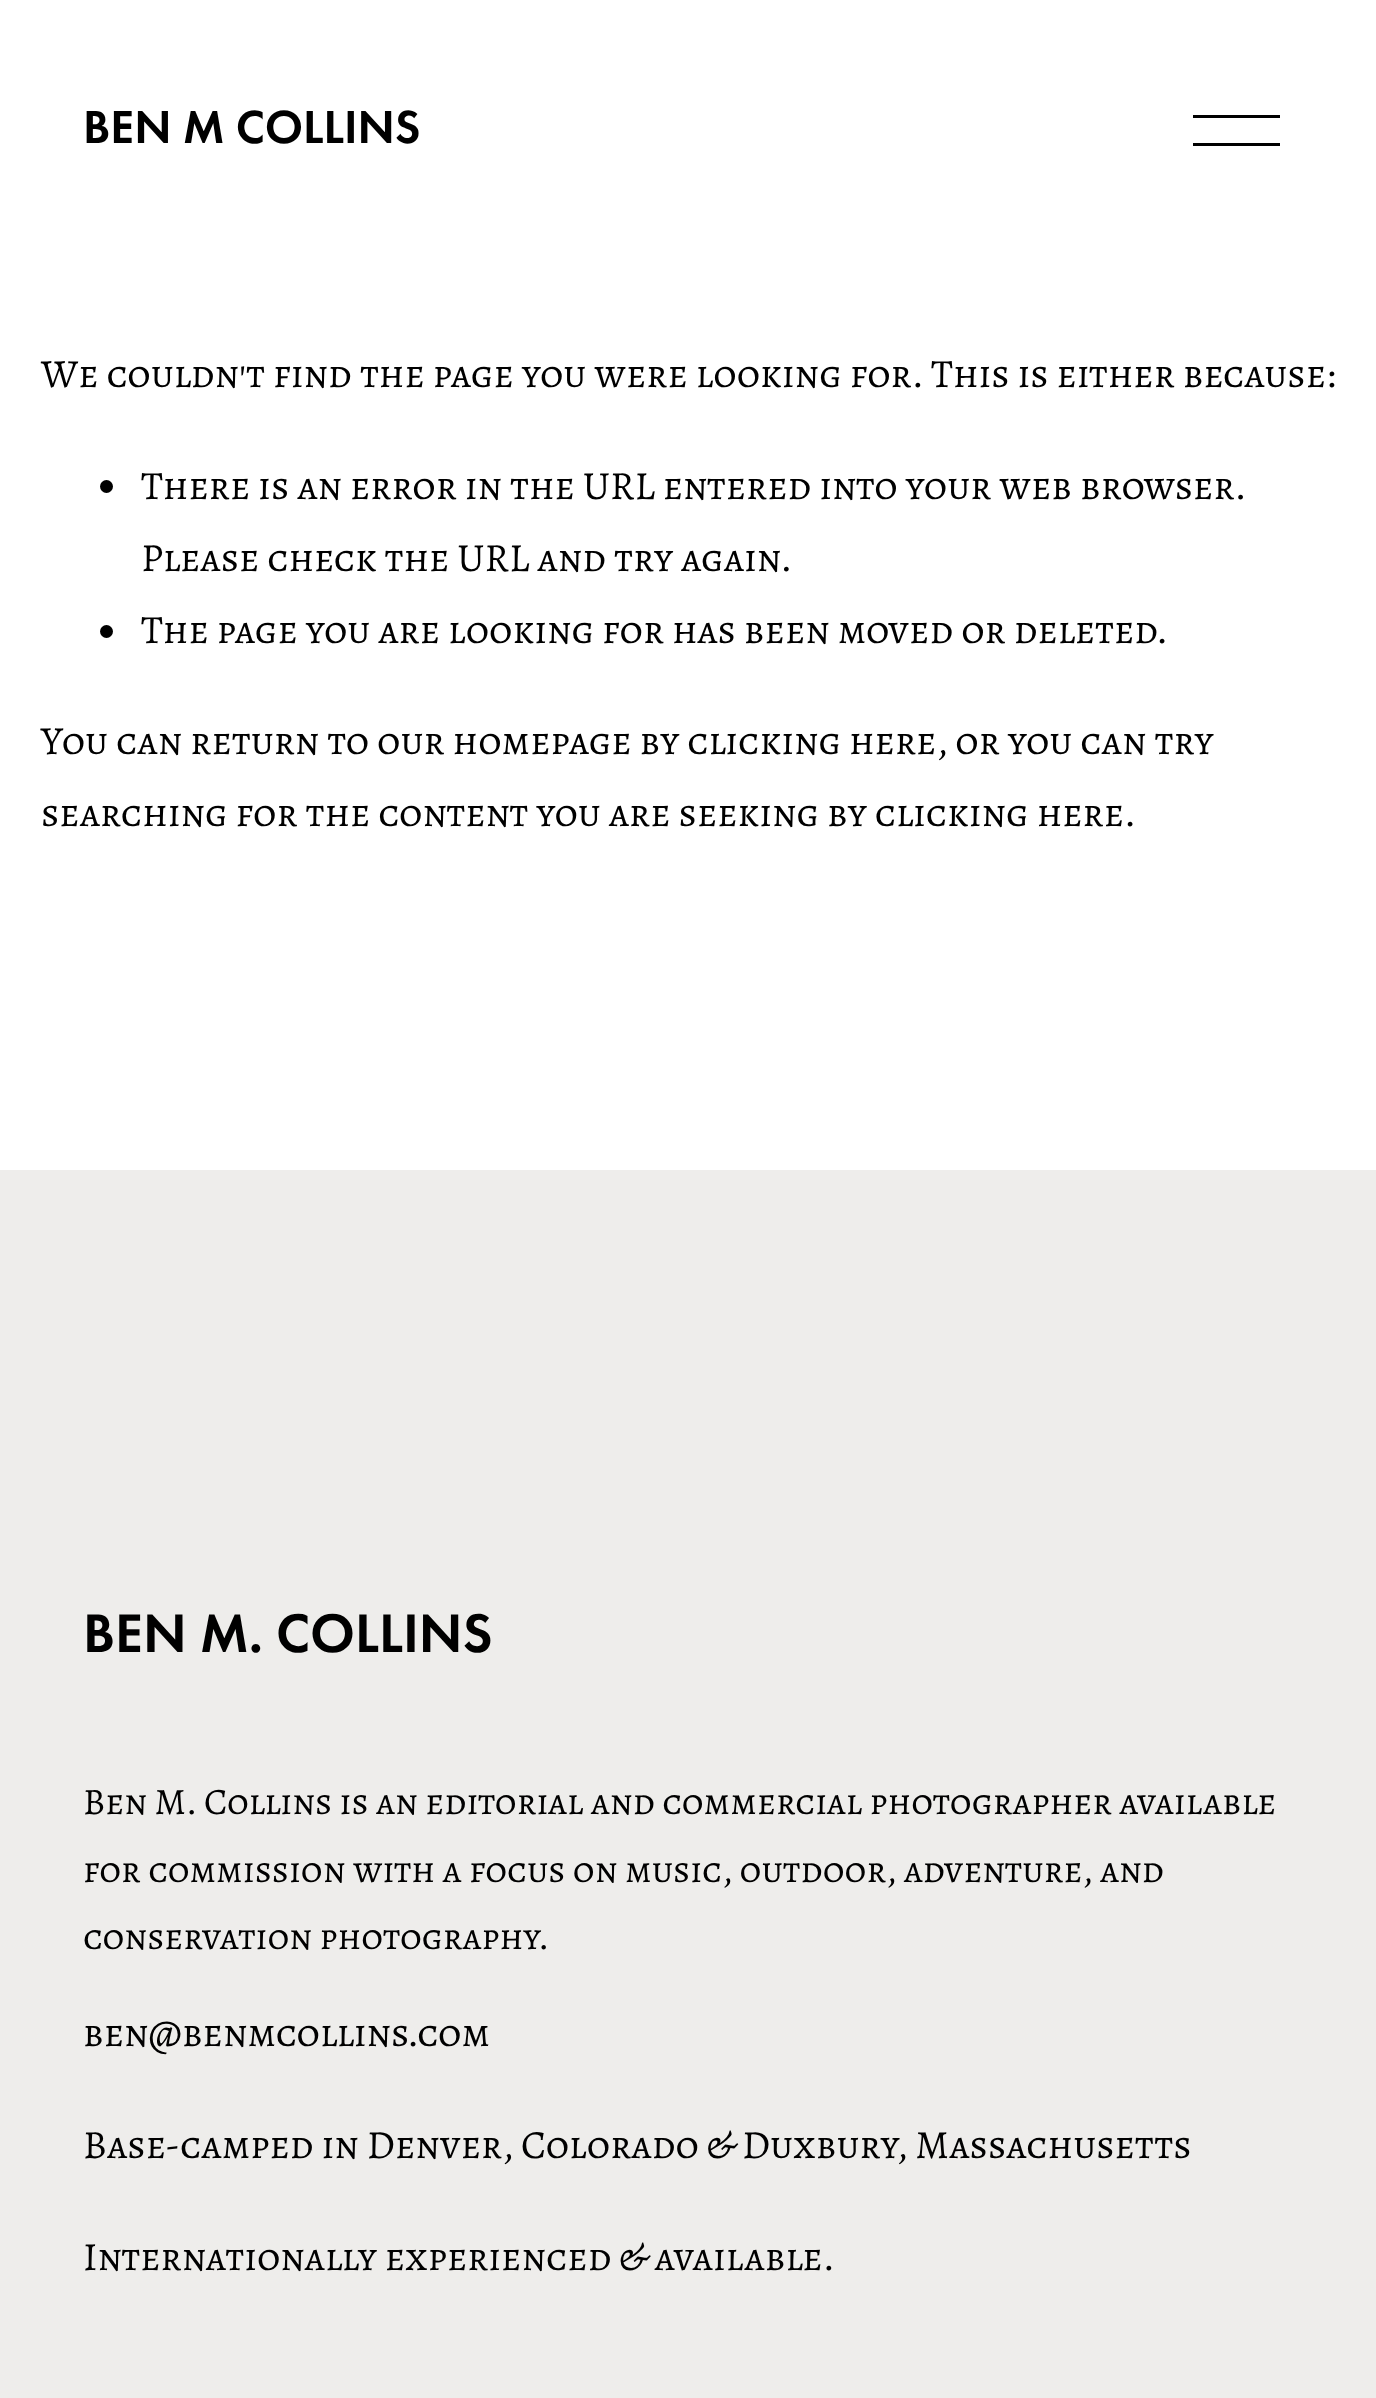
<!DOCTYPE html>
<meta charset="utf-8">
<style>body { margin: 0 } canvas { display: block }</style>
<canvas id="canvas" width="1376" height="2398"></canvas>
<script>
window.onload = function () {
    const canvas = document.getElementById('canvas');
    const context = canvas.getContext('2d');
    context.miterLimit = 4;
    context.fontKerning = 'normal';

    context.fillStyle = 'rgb(255, 255, 255)';
    context.fillRect(0, 0, 1376, 2398);
    context.fillStyle = 'rgb(0, 0, 0)';
    context.fillRect(1193, 115, 87, 3);
    context.fillRect(1193, 143, 87, 3);
    context.beginPath();
    context.arc(106.5, 486.5, 6.5, 0, 2 * Math.PI);
    context.fill();
    context.beginPath();
    context.arc(106.5, 631.5, 6.5, 0, 2 * Math.PI);
    context.fill();
    context.fillStyle = 'rgb(238, 237, 235)';
    context.fillRect(0, 1170, 1376, 1228);
    context.font = '500 48px Futura PT';
    context.fillStyle = 'rgb(0, 0, 0)';
    context.fillText('BEN M COLLINS', 83, 143);
    context.font = '40px Alegreya SC';
    context.fillText('We couldn\'t find the page you were looking for. This is either because:', 41, 387);
    context.fillText('There is an error in the URL entered into your web browser.', 141, 499);
    context.fillText('Please check the URL and try again.', 141, 571);
    context.fillText('The page you are looking for has been moved or deleted.', 141, 643);
    context.fillText('You can return to our homepage by clicking here, or you can try', 41, 754);
    context.fillText('searching for the content you are seeking by clicking here.', 41, 826);
    context.font = '500 56.25px Futura PT';
    context.fillText('BEN M. COLLINS', 83, 1652);
    context.font = '37.3px Alegreya SC';
    context.fillText('Ben M. Collins is an editorial and commercial photographer available', 83, 1814);
    context.fillText('for commission with a focus on music, outdoor, adventure, and', 83, 1882);
    context.fillText('conservation photography.', 83, 1949);
    context.font = '40px Alegreya SC';
    context.fillText('ben@benmcollins.com', 83, 2046);
    context.fillText('Base-camped in Denver, Colorado & Duxbury, Massachusetts', 83, 2158);
    context.fillText('Internationally experienced & available.', 83, 2270);
};
</script>
